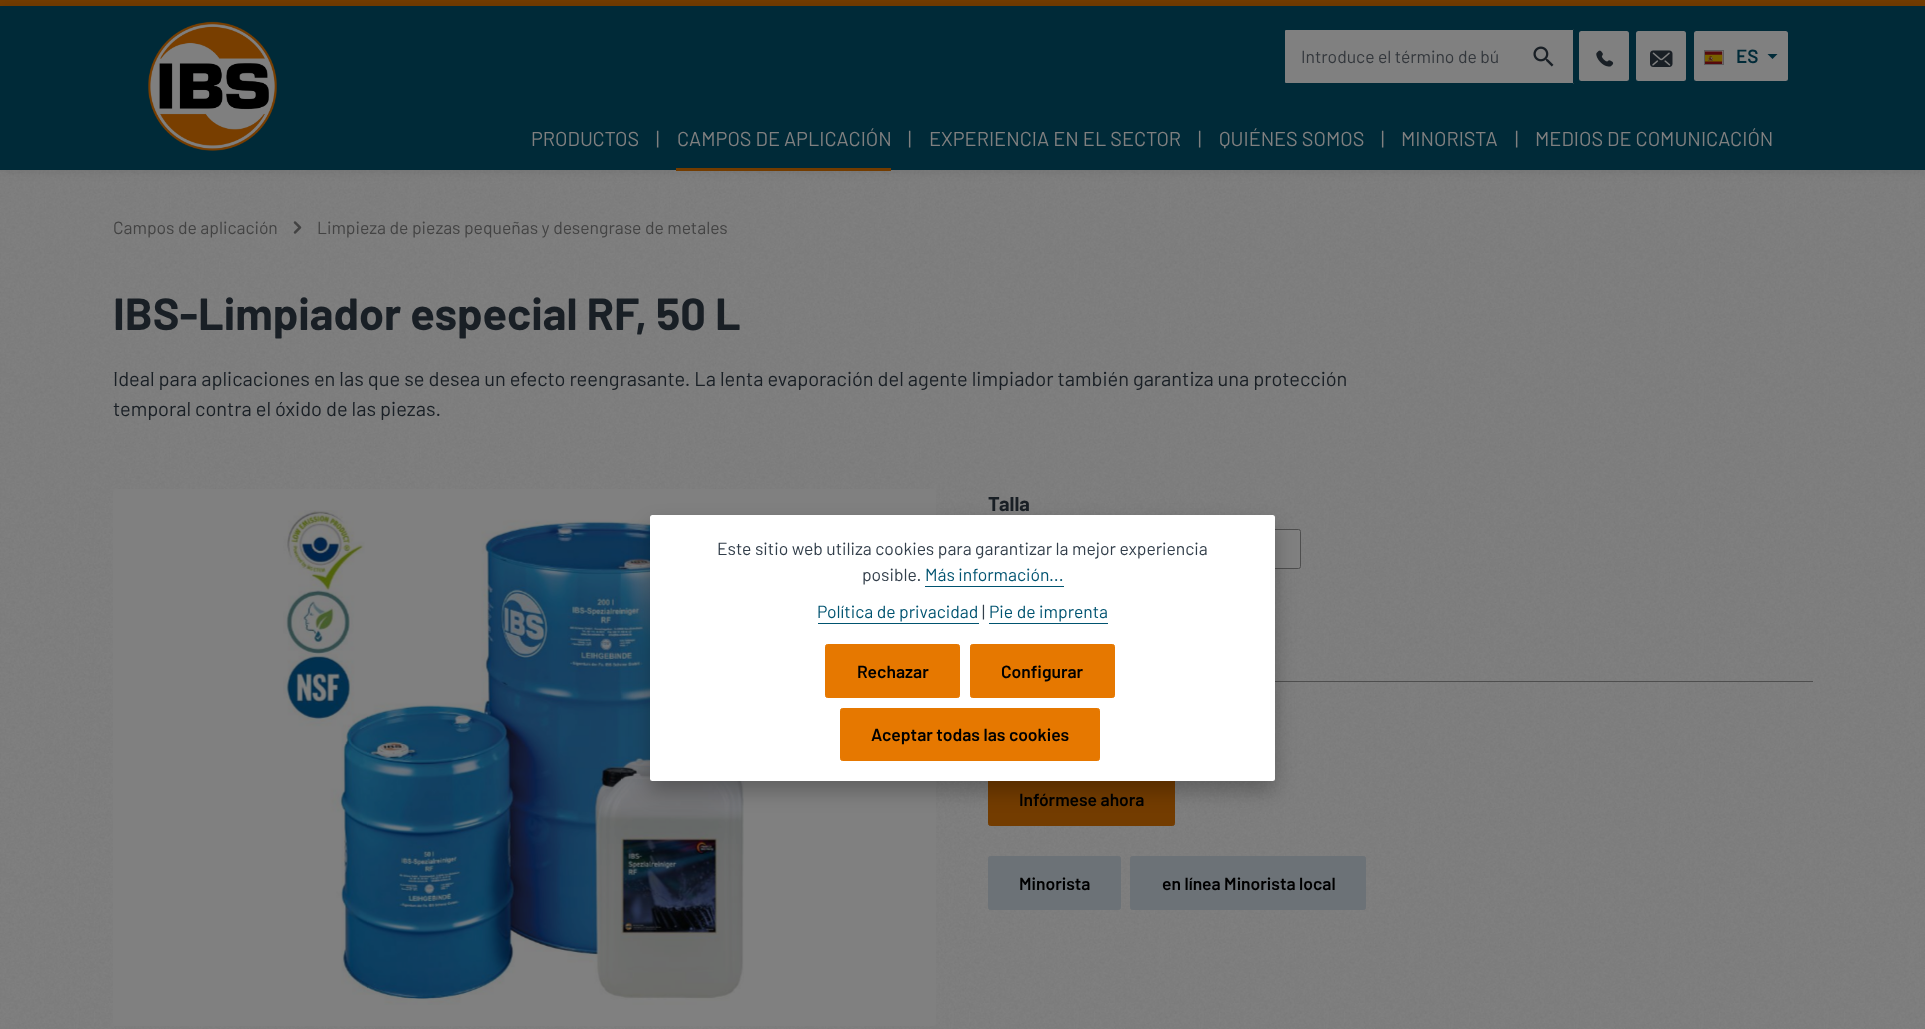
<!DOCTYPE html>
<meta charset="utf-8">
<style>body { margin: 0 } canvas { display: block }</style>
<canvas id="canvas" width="1925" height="1029"></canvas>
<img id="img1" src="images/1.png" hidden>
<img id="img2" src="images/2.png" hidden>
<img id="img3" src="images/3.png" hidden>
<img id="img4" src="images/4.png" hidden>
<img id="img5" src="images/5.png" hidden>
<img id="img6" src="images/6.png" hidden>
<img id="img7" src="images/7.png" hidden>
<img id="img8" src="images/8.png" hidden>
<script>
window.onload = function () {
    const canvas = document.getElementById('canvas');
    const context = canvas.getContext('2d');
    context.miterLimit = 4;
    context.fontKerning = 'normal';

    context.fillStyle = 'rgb(128, 128, 128)';
    context.fillRect(0, 0, 1925, 1029);
    context.drawImage(document.getElementById('img1'), 0, 170, 1925, 859);
    context.fillStyle = 'rgb(115, 60, 0)';
    context.fillRect(0, 0, 1925, 6);
    context.fillStyle = 'rgba(0, 0, 0, 0.1)';
    context.filter = 'blur(6px)';
    context.beginPath();
    context.rect(0, 6, 1925, 164);
    context.fill();
    context.filter = 'none';
    context.fillStyle = 'rgb(0, 42, 56)';
    context.fillRect(0, 6, 1925, 164);
    context.drawImage(document.getElementById('img2'), 148, 21, 129, 130);
    context.fillStyle = 'rgb(128, 128, 128)';
    context.beginPath();
    context.roundRect(1285, 30, 231, 53, [1, 0, 0, 1]);
    context.fill();
    context.beginPath();
    context.roundRect(1515, 29, 59, 55, [0, 2.5, 2.5, 0]);
    context.fill();
    context.fillStyle = 'rgb(0, 42, 56)';
    context.fillRect(1515, 29, 58, 1);
    context.fillRect(1573, 30, 1, 53);
    context.fillRect(1515, 83, 58, 1);
    context.drawImage(document.getElementById('img3'), 1533, 46, 21, 21);
    context.fillStyle = 'rgb(128, 128, 128)';
    context.beginPath();
    context.roundRect(1579, 31, 50, 50, 2.5);
    context.fill();
    context.drawImage(document.getElementById('img4'), 1596, 50, 18, 17);
    context.beginPath();
    context.roundRect(1636, 31, 50, 50, 2.5);
    context.fill();
    context.drawImage(document.getElementById('img5'), 1650, 50, 23, 17);
    context.beginPath();
    context.roundRect(1694, 31, 94, 50, 2.5);
    context.fill();
    context.drawImage(document.getElementById('img6'), 1705, 51, 18, 13);
    context.strokeStyle = 'rgb(91, 91, 91)';
    context.strokeRect(1704.5, 50.5, 19, 14);
    context.fillStyle = 'rgb(0, 42, 56)';
    context.beginPath();
    context.moveTo(1767.5, 54);
    context.lineTo(1777.5, 54);
    context.lineTo(1772.5, 59);
    context.closePath();
    context.fill();
    context.fillStyle = 'rgb(115, 60, 0)';
    context.fillRect(676, 168, 215, 3);
    context.drawImage(document.getElementById('img7'), 293, 221, 9, 13);
    context.fillStyle = 'rgb(128, 128, 128)';
    context.beginPath();
    context.roundRect(113, 489, 823, 537, 2.5);
    context.fill();
    context.drawImage(document.getElementById('img8'), 283, 510, 461, 495);
    context.beginPath();
    context.roundRect(1208.5, 529.5, 92, 39, 2);
    context.fill();
    context.strokeStyle = 'rgb(78, 78, 78)';
    context.stroke();
    context.fillStyle = 'rgb(78, 78, 78)';
    context.fillRect(1275, 681, 538, 1);
    context.fillStyle = 'rgb(115, 60, 0)';
    context.beginPath();
    context.roundRect(988.5, 773.5, 186, 52, 2);
    context.fill();
    context.strokeStyle = 'rgb(115, 60, 0)';
    context.stroke();
    context.fillStyle = 'rgb(108, 114, 119)';
    context.beginPath();
    context.roundRect(988.5, 856.5, 132, 53, 2);
    context.fill();
    context.strokeStyle = 'rgb(108, 114, 119)';
    context.stroke();
    context.beginPath();
    context.roundRect(1130.5, 856.5, 235, 53, 2);
    context.fill();
    context.stroke();
    context.fillStyle = 'rgba(0, 0, 0, 0.25)';
    context.filter = 'blur(10px)';
    context.beginPath();
    context.roundRect(650, 525, 625, 266, 2.5);
    context.fill();
    context.filter = 'none';
    context.fillStyle = 'rgb(255, 255, 255)';
    context.beginPath();
    context.roundRect(650, 515, 625, 266, 2.5);
    context.fill();
    context.fillStyle = 'rgb(0, 83, 112)';
    context.fillRect(925, 586, 139, 1);
    context.fillRect(818, 623, 161, 1);
    context.fillRect(989, 623, 119, 1);
    context.fillStyle = 'rgb(230, 120, 0)';
    context.beginPath();
    context.roundRect(825.5, 644.5, 134, 53, 2);
    context.fill();
    context.strokeStyle = 'rgb(230, 120, 0)';
    context.stroke();
    context.beginPath();
    context.roundRect(970.5, 644.5, 144, 53, 2);
    context.fill();
    context.stroke();
    context.beginPath();
    context.roundRect(840.5, 708.5, 259, 52, 2);
    context.fill();
    context.stroke();
    context.font = '17.5px Barlow';
    context.fillStyle = 'rgb(51, 55, 60)';
    context.fillText('Introduce el término de bú', 1301, 63);
    context.font = '600 19px Barlow';
    context.fillStyle = 'rgb(0, 42, 56)';
    context.fillText('ES', 1736, 63);
    context.font = '20px Barlow';
    context.fillStyle = 'rgb(128, 128, 128)';
    context.fillText('PRODUCTOS', 531, 146);
    context.fillText('|', 656, 146);
    context.fillText('CAMPOS DE APLICACIÓN', 677, 146);
    context.fillText('|', 908, 146);
    context.fillText('EXPERIENCIA EN EL SECTOR', 929, 146);
    context.fillText('|', 1198, 146);
    context.fillText('QUIÉNES SOMOS', 1219, 146);
    context.fillText('|', 1381, 146);
    context.fillText('MINORISTA', 1401, 146);
    context.fillText('|', 1515, 146);
    context.fillText('MEDIOS DE COMUNICACIÓN', 1535, 146);
    context.font = '17.5px Barlow';
    context.fillStyle = 'rgb(67, 67, 67)';
    context.fillText('Campos de aplicación', 113, 234);
    context.fillText('Limpieza de piezas pequeñas y desengrase de metales', 317, 234);
    context.font = 'bold 45px Barlow';
    context.fillStyle = 'rgb(25, 31, 37)';
    context.fillText('IBS-Limpiador especial RF, 50 L', 113, 330);
    context.font = '20px Barlow';
    context.fillText('Ideal para aplicaciones en las que se desea un efecto reengrasante. La lenta evaporación del agente limpiador también garantiza una protección', 113, 386);
    context.fillText('temporal contra el óxido de las piezas.', 113, 416);
    context.font = 'bold 20px Barlow';
    context.fillText('Talla', 988, 511);
    context.font = '600 17.5px Barlow';
    context.fillStyle = 'rgb(0, 0, 0)';
    context.fillText('Infórmese ahora', 1019, 806);
    context.fillText('Minorista', 1019, 890);
    context.fillText('en línea Minorista local', 1162, 890);
    context.font = '17.5px Barlow';
    context.fillStyle = 'rgb(50, 62, 74)';
    context.fillText('Este sitio web utiliza cookies para garantizar la mejor experiencia', 717, 555);
    context.fillText('posible.', 862, 581);
    context.fillStyle = 'rgb(0, 83, 112)';
    context.fillText('Más información...', 925, 581);
    context.fillText('Política de privacidad', 817, 618);
    context.fillStyle = 'rgb(50, 62, 74)';
    context.fillText('|', 982, 618);
    context.fillStyle = 'rgb(0, 83, 112)';
    context.fillText('Pie de imprenta', 989, 618);
    context.font = '600 17.5px Barlow';
    context.fillStyle = 'rgb(0, 0, 0)';
    context.fillText('Rechazar', 857, 678);
    context.fillText('Configurar', 1001, 678);
    context.fillText('Aceptar todas las cookies', 871, 741);
};
</script>
